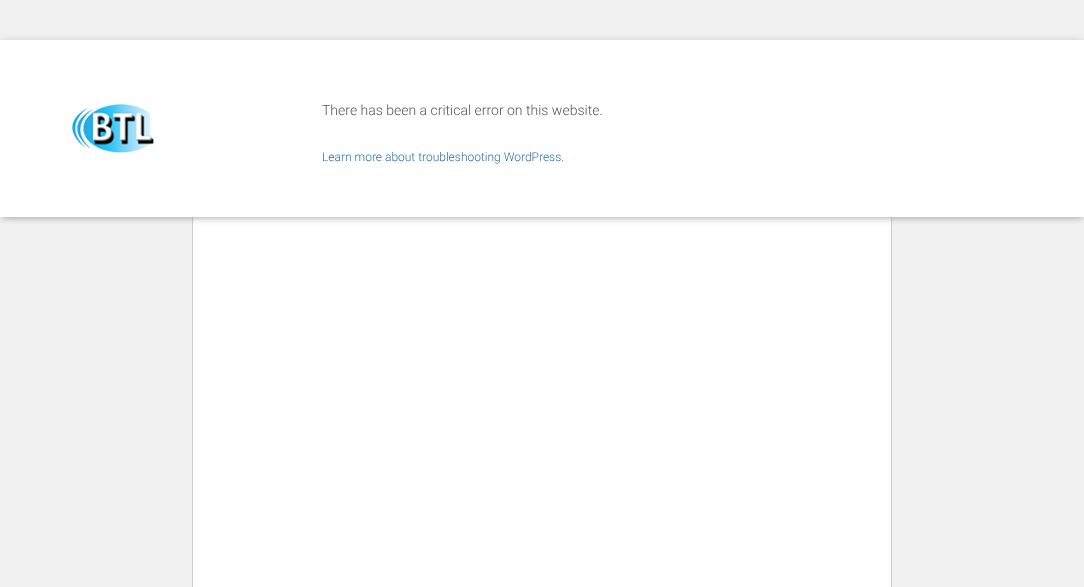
<!DOCTYPE html>
<meta charset="utf-8">
<style>body { margin: 0 } canvas { display: block }</style>
<canvas id="canvas" width="1084" height="587"></canvas>
<img id="img1" src="images/1.png" hidden>
<script>
window.onload = function () {
    const canvas = document.getElementById('canvas');
    const context = canvas.getContext('2d');
    context.miterLimit = 4;
    context.fontKerning = 'normal';

    context.fillStyle = 'rgb(241, 241, 241)';
    context.fillRect(0, 0, 1084, 587);
    context.fillStyle = 'rgb(255, 255, 255)';
    context.fillRect(193, 217, 698, 370);
    context.strokeStyle = 'rgb(204, 208, 212)';
    context.strokeRect(192.5, 50.5, 699, 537);
    context.fillStyle = 'rgba(0, 0, 0, 0.1)';
    context.filter = 'blur(2.5px)';
    context.beginPath();
    context.rect(2, 46, 1080, 173);
    context.fill();
    context.filter = 'none';
    context.fillStyle = 'rgba(0, 0, 0, 0.12)';
    context.filter = 'blur(5px)';
    context.beginPath();
    context.rect(0, 41, 1084, 177);
    context.fill();
    context.filter = 'none';
    context.fillStyle = 'rgba(0, 0, 0, 0.42)';
    context.filter = 'blur(5px)';
    context.beginPath();
    context.rect(6, 47, 1072, 165);
    context.fill();
    context.filter = 'none';
    context.fillStyle = 'rgb(255, 255, 255)';
    context.fillRect(0, 40, 1084, 177);
    context.drawImage(document.getElementById('img1'), 72, 104, 82, 49);
    context.font = '300 14px Roboto';
    context.fillStyle = 'rgb(85, 85, 85)';
    context.fillText('There has been a critical error on this website.', 322, 115);
    context.font = '300 12px Roboto';
    context.fillStyle = 'rgb(34, 113, 177)';
    context.fillText('Learn more about troubleshooting WordPress.', 322, 161);
};
</script>
